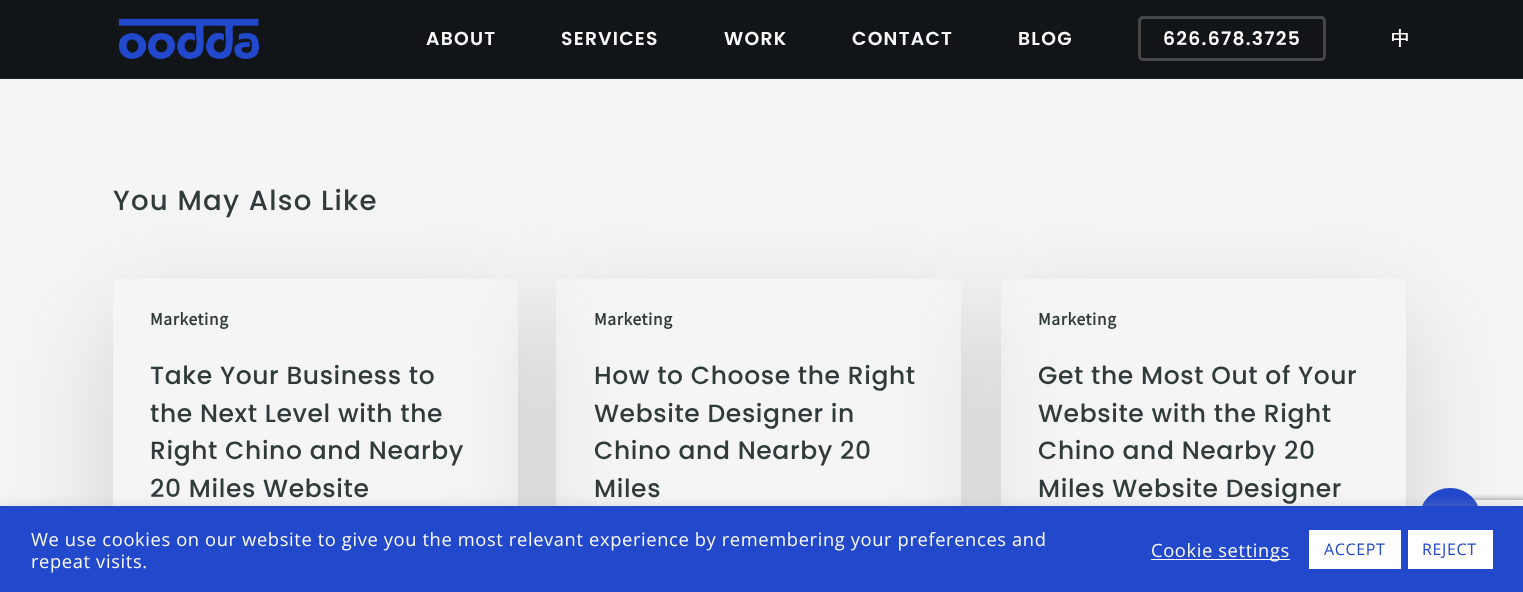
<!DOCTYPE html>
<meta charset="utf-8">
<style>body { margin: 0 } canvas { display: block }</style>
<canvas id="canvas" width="1523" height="592"></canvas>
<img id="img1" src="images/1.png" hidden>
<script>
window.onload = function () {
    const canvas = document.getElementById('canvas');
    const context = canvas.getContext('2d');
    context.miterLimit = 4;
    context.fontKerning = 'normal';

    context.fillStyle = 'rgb(245, 245, 245)';
    context.fillRect(0, 0, 1523, 592);
    context.fillStyle = 'rgb(18, 21, 24)';
    context.fillRect(0, 0, 1523, 78);
    context.drawImage(document.getElementById('img1'), 118, 18, 142, 42);
    context.beginPath();
    context.roundRect(1139.5, 17.5, 185, 42, 3.5);
    context.strokeStyle = 'rgb(71, 71, 71)';
    context.lineWidth = 3;
    context.stroke();
    context.fillStyle = 'rgb(38, 38, 38)';
    context.fillRect(0, 78, 1523, 1);
    context.save();
    context.beginPath();
    context.moveTo(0, 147);
    context.lineTo(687, 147);
    context.lineTo(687, 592);
    context.lineTo(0, 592);
    context.closePath();
    context.moveTo(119, 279);
    context.lineTo(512, 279);
    context.bezierCurveTo(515.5, 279, 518, 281.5, 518, 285);
    context.lineTo(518, 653);
    context.bezierCurveTo(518, 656.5, 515.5, 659, 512, 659);
    context.lineTo(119, 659);
    context.bezierCurveTo(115.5, 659, 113, 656.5, 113, 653);
    context.lineTo(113, 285);
    context.bezierCurveTo(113, 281.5, 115.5, 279, 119, 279);
    context.closePath();
    context.clip('evenodd');
    context.fillStyle = 'rgba(0, 0, 0, 0.14)';
    context.filter = 'blur(56px)';
    context.beginPath();
    context.roundRect(113, 316, 405, 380, 6);
    context.fill();
    context.filter = 'none';
    context.restore();
    context.save();
    context.beginPath();
    context.moveTo(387, 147);
    context.lineTo(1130, 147);
    context.lineTo(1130, 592);
    context.lineTo(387, 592);
    context.closePath();
    context.moveTo(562, 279);
    context.lineTo(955, 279);
    context.bezierCurveTo(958.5, 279, 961, 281.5, 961, 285);
    context.lineTo(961, 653);
    context.bezierCurveTo(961, 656.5, 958.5, 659, 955, 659);
    context.lineTo(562, 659);
    context.bezierCurveTo(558.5, 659, 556, 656.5, 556, 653);
    context.lineTo(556, 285);
    context.bezierCurveTo(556, 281.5, 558.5, 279, 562, 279);
    context.closePath();
    context.clip('evenodd');
    context.fillStyle = 'rgba(0, 0, 0, 0.14)';
    context.filter = 'blur(56px)';
    context.beginPath();
    context.roundRect(556, 316, 405, 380, 6);
    context.fill();
    context.filter = 'none';
    context.restore();
    context.save();
    context.beginPath();
    context.moveTo(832, 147);
    context.lineTo(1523, 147);
    context.lineTo(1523, 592);
    context.lineTo(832, 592);
    context.closePath();
    context.moveTo(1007, 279);
    context.lineTo(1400, 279);
    context.bezierCurveTo(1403.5, 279, 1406, 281.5, 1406, 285);
    context.lineTo(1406, 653);
    context.bezierCurveTo(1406, 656.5, 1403.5, 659, 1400, 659);
    context.lineTo(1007, 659);
    context.bezierCurveTo(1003.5, 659, 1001, 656.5, 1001, 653);
    context.lineTo(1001, 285);
    context.bezierCurveTo(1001, 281.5, 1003.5, 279, 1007, 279);
    context.closePath();
    context.clip('evenodd');
    context.fillStyle = 'rgba(0, 0, 0, 0.14)';
    context.filter = 'blur(56px)';
    context.beginPath();
    context.roundRect(1001, 316, 405, 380, 6);
    context.fill();
    context.filter = 'none';
    context.restore();
    context.save();
    context.beginPath();
    context.rect(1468, 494, 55, 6);
    context.clip();
    context.fillStyle = 'rgb(128, 128, 128)';
    context.filter = 'blur(3px)';
    context.beginPath();
    context.roundRect(1436, 500, 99, 75, 2.5);
    context.fill();
    context.filter = 'none';
    context.restore();
    context.fillStyle = 'rgb(34, 72, 203)';
    context.beginPath();
    context.arc(1450, 519, 31, 0, 2 * Math.PI);
    context.fill();
    context.fillStyle = 'rgba(172, 171, 171, 0.3)';
    context.filter = 'blur(6px)';
    context.beginPath();
    context.rect(0, 505, 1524, 86);
    context.fill();
    context.filter = 'none';
    context.fillStyle = 'rgb(34, 72, 203)';
    context.fillRect(0, 506, 1523, 86);
    context.fillStyle = 'rgb(255, 255, 255)';
    context.fillRect(1151, 559, 139, 1);
    context.fillRect(1309, 530, 92, 39);
    context.fillRect(1408, 530, 85, 39);
    context.letterSpacing = '1.25px';
    context.font = '600 18.75px Poppins';
    context.fillStyle = 'rgb(250, 250, 250)';
    context.fillText('ABOUT', 426, 45);
    context.fillText('SERVICES', 561, 45);
    context.fillText('WORK', 724, 45);
    context.fillText('CONTACT', 852, 45);
    context.fillText('BLOG', 1018, 45);
    context.fillText('626.678.3725', 1163, 45);
    context.font = 'bold 18.75px WenQuanYi Zen Hei';
    context.fillText('中', 1391, 45);
    context.font = '500 27.6px Poppins';
    context.fillStyle = 'rgb(50, 59, 59)';
    context.fillText('You May Also Like', 113, 210);
    context.letterSpacing = '0.62px';
    context.font = 'bold 17.5px Source Sans Pro';
    context.fillText('Marketing', 150, 325);
    context.font = '500 25px Poppins';
    context.fillText('Take Your Business to', 150, 384);
    context.fillText('the Next Level with the', 150, 422);
    context.fillText('Right Chino and Nearby', 150, 459);
    context.fillText('20 Miles Website', 150, 497);
    context.font = 'bold 17.5px Source Sans Pro';
    context.fillText('Marketing', 594, 325);
    context.font = '500 25px Poppins';
    context.fillText('How to Choose the Right', 594, 384);
    context.fillText('Website Designer in', 594, 422);
    context.fillText('Chino and Nearby 20', 594, 459);
    context.fillText('Miles', 594, 497);
    context.font = 'bold 17.5px Source Sans Pro';
    context.fillText('Marketing', 1038, 325);
    context.font = '500 25px Poppins';
    context.fillText('Get the Most Out of Your', 1038, 384);
    context.fillText('Website with the Right', 1038, 422);
    context.fillText('Chino and Nearby 20', 1038, 459);
    context.fillText('Miles Website Designer', 1038, 497);
    context.font = '18.33px Open Sans';
    context.fillStyle = 'rgb(250, 250, 250)';
    context.fillText('We use cookies on our website to give you the most relevant experience by remembering your preferences and', 31, 546);
    context.fillText('repeat visits.', 31, 568);
    context.fillText('Cookie settings', 1151, 557);
    context.font = '16px Open Sans';
    context.fillStyle = 'rgb(34, 72, 203)';
    context.fillText('ACCEPT', 1324, 555);
    context.fillText('REJECT', 1422, 555);
};
</script>
